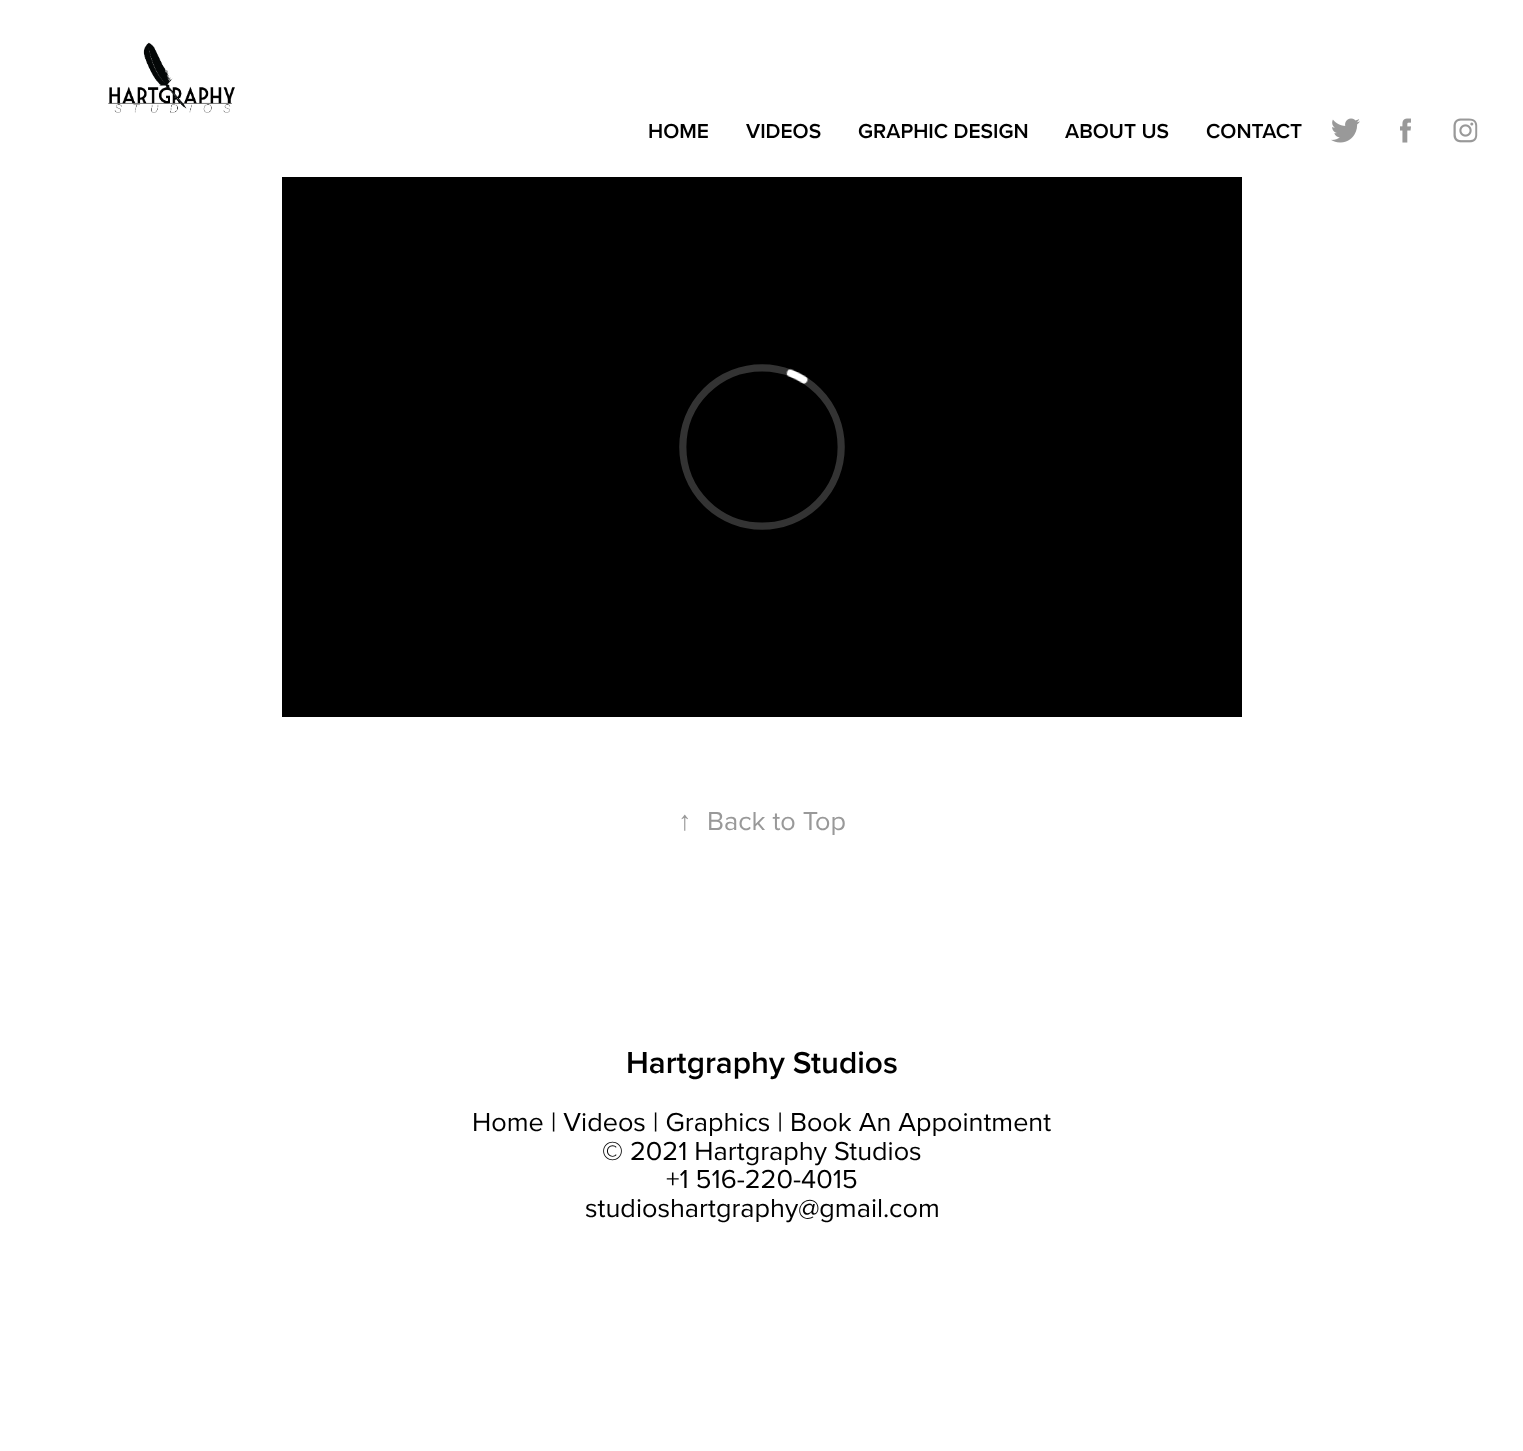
<!DOCTYPE html>
<meta charset="utf-8">
<style>body { margin: 0 } canvas { display: block }</style>
<canvas id="canvas" width="1523" height="1451"></canvas>
<img id="img1" src="images/1.png" hidden>
<img id="img2" src="images/2.png" hidden>
<img id="img3" src="images/3.png" hidden>
<img id="img4" src="images/4.png" hidden>
<img id="img5" src="images/5.png" hidden>
<script>
window.onload = function () {
    const canvas = document.getElementById('canvas');
    const context = canvas.getContext('2d');
    context.miterLimit = 4;
    context.fontKerning = 'normal';

    context.fillStyle = 'rgb(255, 255, 255)';
    context.fillRect(0, 0, 1523, 1451);
    context.drawImage(document.getElementById('img1'), 108, 42, 127, 71);
    context.drawImage(document.getElementById('img2'), 1331, 118, 29, 25);
    context.drawImage(document.getElementById('img3'), 1400, 118, 11, 25);
    context.drawImage(document.getElementById('img4'), 1453, 118, 25, 25);
    context.drawImage(document.getElementById('img5'), 282, 177, 960, 540);
    context.font = '600 21px Proxima Nova';
    context.fillStyle = 'rgb(0, 0, 0)';
    context.fillText('HOME', 648, 138);
    context.fillText('VIDEOS', 746, 138);
    context.fillText('GRAPHIC DESIGN', 858, 138);
    context.fillText('ABOUT US', 1065, 138);
    context.fillText('CONTACT', 1206, 138);
    context.font = '27px Liberation Serif';
    context.fillStyle = 'rgb(153, 153, 153)';
    context.fillText('↑', 678, 830);
    context.font = '27px Proxima Nova';
    context.fillText('Back to Top', 707, 830);
    context.font = '600 31.5px Proxima Nova';
    context.fillStyle = 'rgb(0, 0, 0)';
    context.fillText('Hartgraphy Studios', 626, 1073);
    context.font = '27px Proxima Nova';
    context.fillText('Home | Videos | Graphics | Book An Appointment', 472, 1131);
    context.fillText('© 2021 Hartgraphy Studios', 602, 1160);
    context.fillText('+1 516-220-4015', 666, 1188);
    context.fillText('studioshartgraphy@gmail.com', 585, 1217);
};
</script>
